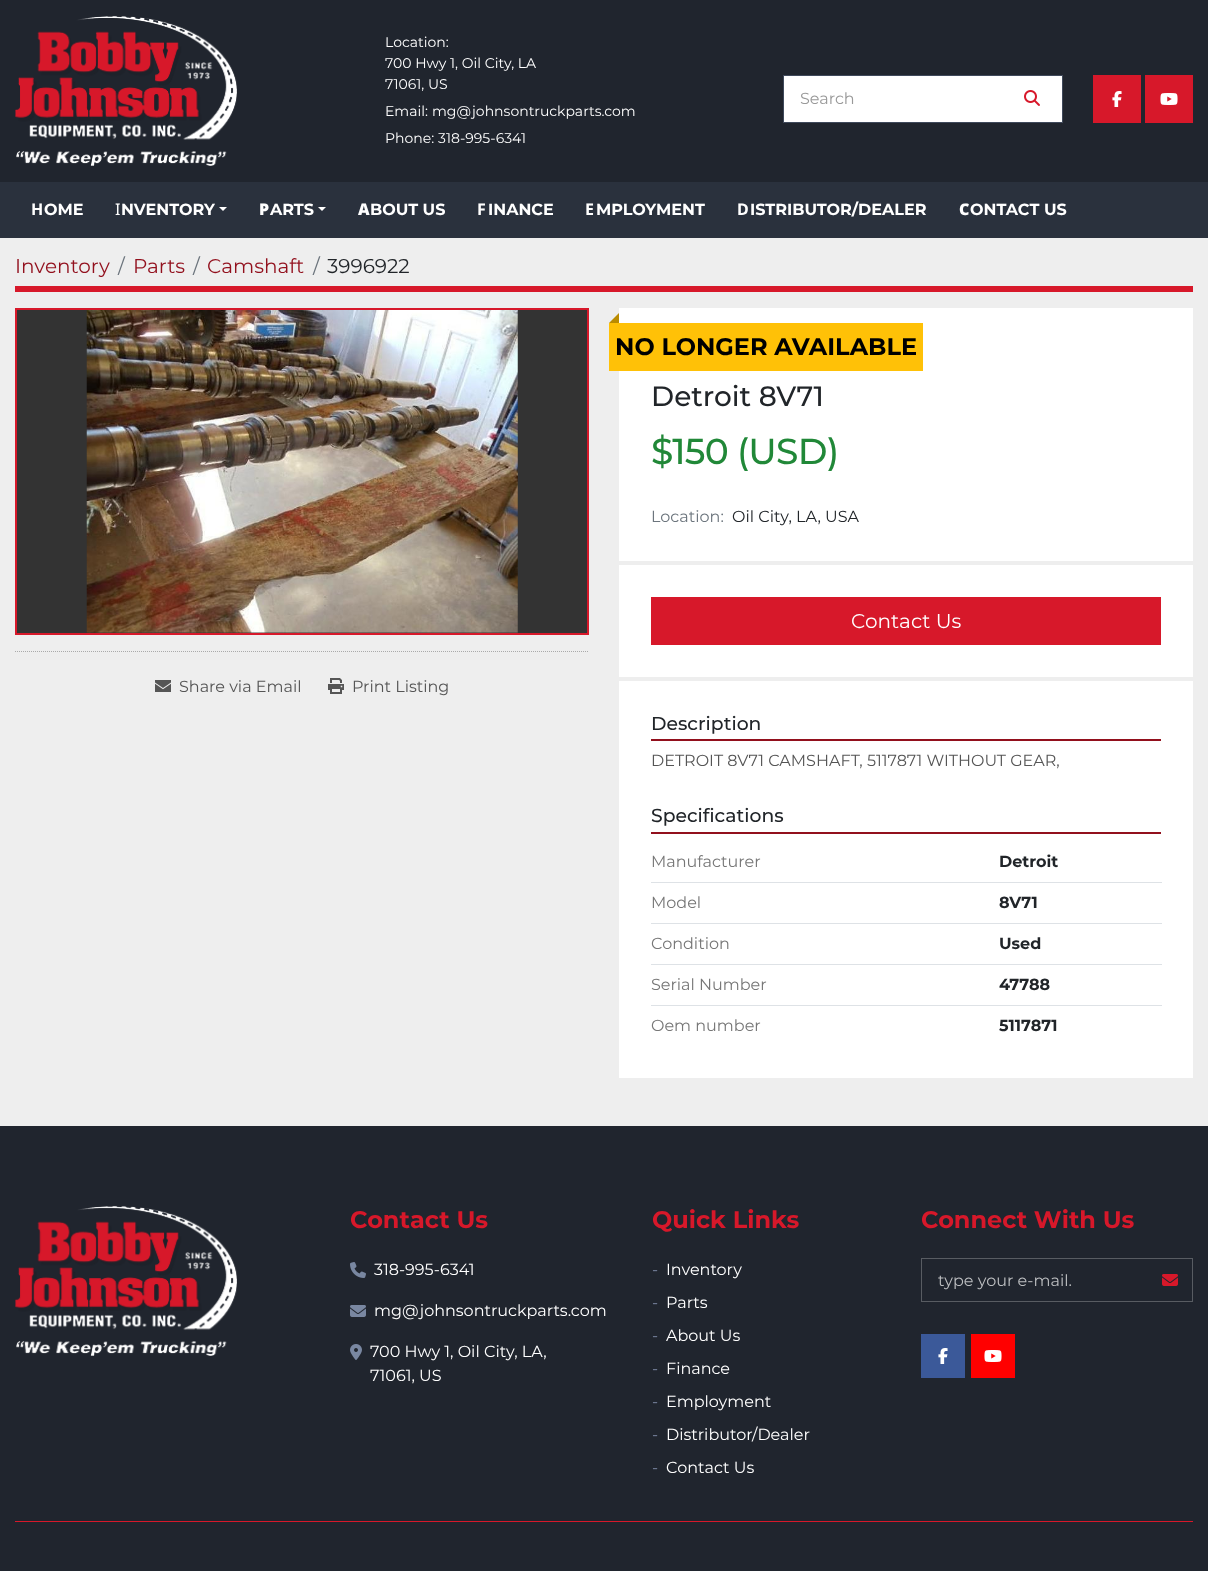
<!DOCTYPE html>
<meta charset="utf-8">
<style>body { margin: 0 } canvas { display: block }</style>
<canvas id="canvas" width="1208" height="1571"></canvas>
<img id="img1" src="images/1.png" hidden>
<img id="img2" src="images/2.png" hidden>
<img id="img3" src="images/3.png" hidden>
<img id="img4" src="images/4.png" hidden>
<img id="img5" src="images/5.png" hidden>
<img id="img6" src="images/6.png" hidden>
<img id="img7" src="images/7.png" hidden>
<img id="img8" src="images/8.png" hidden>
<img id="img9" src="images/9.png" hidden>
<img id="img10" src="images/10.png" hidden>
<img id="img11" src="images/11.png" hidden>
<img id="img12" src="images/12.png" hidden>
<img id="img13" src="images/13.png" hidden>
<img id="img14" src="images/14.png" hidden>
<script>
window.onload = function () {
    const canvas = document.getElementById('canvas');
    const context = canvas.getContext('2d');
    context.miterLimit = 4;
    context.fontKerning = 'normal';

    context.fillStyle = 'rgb(238, 238, 238)';
    context.fillRect(0, 0, 1208, 1571);
    context.fillStyle = 'rgb(32, 37, 46)';
    context.fillRect(0, 0, 1208, 182);
    context.drawImage(document.getElementById('img1'), 15, 16, 222, 150);
    context.fillStyle = 'rgb(255, 255, 255)';
    context.beginPath();
    context.rect(783.5, 75.5, 279, 47);
    context.fill();
    context.strokeStyle = 'rgb(63, 73, 91)';
    context.stroke();
    context.drawImage(document.getElementById('img2'), 1024, 90, 16, 16);
    context.fillStyle = 'rgb(215, 24, 42)';
    context.fillRect(1093, 75, 48, 48);
    context.drawImage(document.getElementById('img3'), 1112, 91, 10, 16);
    context.fillRect(1145, 75, 48, 48);
    context.drawImage(document.getElementById('img4'), 1160, 93, 18, 12);
    context.fillStyle = 'rgb(42, 49, 61)';
    context.fillRect(0, 182, 1208, 56);
    context.fillStyle = 'rgb(255, 255, 255)';
    context.beginPath();
    context.moveTo(219, 207);
    context.lineTo(227, 207);
    context.lineTo(223, 211);
    context.closePath();
    context.fill();
    context.beginPath();
    context.moveTo(318, 207);
    context.lineTo(326, 207);
    context.lineTo(322, 211);
    context.closePath();
    context.fill();
    context.fillStyle = 'rgb(215, 24, 42)';
    context.fillRect(15, 286, 1178, 6);
    context.fillStyle = 'rgb(51, 51, 51)';
    context.beginPath();
    context.rect(16, 309, 572, 325);
    context.fill();
    context.strokeStyle = 'rgb(215, 24, 42)';
    context.lineWidth = 2;
    context.stroke();
    context.drawImage(document.getElementById('img5'), 86, 310, 432, 323);
    context.beginPath();
    context.moveTo(15, 651.5);
    context.lineTo(589, 651.5);
    context.strokeStyle = 'rgb(170, 170, 170)';
    context.lineWidth = 1;
    context.setLineDash([1, 1]);
    context.stroke();
    context.drawImage(document.getElementById('img6'), 155, 680, 16, 12);
    context.drawImage(document.getElementById('img7'), 328, 678, 16, 16);
    context.fillStyle = 'rgb(255, 255, 255)';
    context.fillRect(619, 308, 574, 770);
    context.fillStyle = 'rgb(255, 193, 7)';
    context.fillRect(609, 323, 314, 48);
    context.fillStyle = 'rgb(186, 139, 0)';
    context.beginPath();
    context.moveTo(619, 323);
    context.lineTo(609, 323);
    context.lineTo(619, 313);
    context.closePath();
    context.fill();
    context.fillStyle = 'rgb(238, 238, 238)';
    context.fillRect(619, 561, 574, 4);
    context.fillRect(619, 677, 574, 4);
    context.fillStyle = 'rgb(215, 24, 42)';
    context.fillRect(651, 597, 510, 48);
    context.fillStyle = 'rgb(146, 16, 29)';
    context.fillRect(651, 739, 510, 2);
    context.fillRect(651, 832, 510, 2);
    context.fillStyle = 'rgb(222, 226, 230)';
    context.fillRect(651, 882, 511, 1);
    context.fillRect(651, 923, 511, 1);
    context.fillRect(651, 964, 511, 1);
    context.fillRect(651, 1005, 511, 1);
    context.fillStyle = 'rgb(32, 37, 46)';
    context.fillRect(0, 1126, 1208, 445);
    context.drawImage(document.getElementById('img8'), 15, 1206, 222, 150);
    context.drawImage(document.getElementById('img9'), 350, 1262, 16, 16);
    context.drawImage(document.getElementById('img10'), 350, 1305, 16, 12);
    context.drawImage(document.getElementById('img11'), 350, 1344, 12, 16);
    context.strokeStyle = 'rgb(88, 92, 98)';
    context.setLineDash([]);
    context.strokeRect(921.5, 1258.5, 271, 43);
    context.drawImage(document.getElementById('img12'), 1162, 1274, 16, 12);
    context.fillStyle = 'rgb(59, 89, 153)';
    context.fillRect(921, 1334, 44, 44);
    context.drawImage(document.getElementById('img13'), 938, 1348, 10, 16);
    context.fillStyle = 'rgb(255, 0, 0)';
    context.fillRect(971, 1334, 44, 44);
    context.drawImage(document.getElementById('img14'), 984, 1350, 18, 12);
    context.fillStyle = 'rgb(215, 24, 42)';
    context.fillRect(15, 1521, 1178, 1);
    context.font = '100 14px Montserrat';
    context.fillStyle = 'rgb(255, 255, 255)';
    context.fillText('Location:', 385, 47);
    context.fillText('700 Hwy 1, Oil City, LA', 385, 68);
    context.fillText('71061, US', 385, 89);
    context.fillText('Email:', 385, 116);
    context.fillText('mg@johnsontruckparts.com', 432, 116);
    context.fillText('Phone:', 385, 143);
    context.fillText('318-995-6341', 438, 143);
    context.font = '100 16px Montserrat';
    context.fillStyle = 'rgb(153, 153, 153)';
    context.fillText('Search', 800, 104);
    context.font = 'bold 16px Noto Sans';
    context.fillStyle = 'rgb(255, 255, 255)';
    context.fillText('H', 31, 215);
    context.font = '100 16px "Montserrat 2"';
    context.fillText('OME', 44, 215);
    context.font = '16px Noto Sans';
    context.fillText('I', 115, 215);
    context.font = '100 16px "Montserrat 2"';
    context.fillText('NVENTORY', 121, 215);
    context.font = '900 16px Noto Sans';
    context.fillText('P', 259, 215);
    context.font = '100 16px "Montserrat 2"';
    context.fillText('ARTS', 270, 215);
    context.font = '900 16px Noto Sans';
    context.fillText('A', 358, 215);
    context.font = '100 16px "Montserrat 2"';
    context.fillText('BOUT US', 370, 215);
    context.font = 'bold 16px Noto Sans';
    context.fillText('F', 477, 215);
    context.font = '100 16px "Montserrat 2"';
    context.fillText('INANCE', 488, 215);
    context.font = 'bold 16px Noto Sans';
    context.fillText('E', 585, 215);
    context.font = '100 16px "Montserrat 2"';
    context.fillText('MPLOYMENT', 596, 215);
    context.font = 'bold 16px Noto Sans';
    context.fillText('D', 737, 215);
    context.font = '100 16px "Montserrat 2"';
    context.fillText('ISTRIBUTOR/DEALER', 750, 215);
    context.font = '900 16px Noto Sans';
    context.fillText('C', 959, 215);
    context.font = '100 16px "Montserrat 2"';
    context.fillText('ONTACT US', 970, 215);
    context.font = '100 20px Montserrat';
    context.fillStyle = 'rgb(146, 16, 29)';
    context.fillText('Inventory', 15, 273);
    context.fillStyle = 'rgb(108, 117, 125)';
    context.fillText('/', 118, 273);
    context.fillStyle = 'rgb(146, 16, 29)';
    context.fillText('Parts', 133, 273);
    context.fillStyle = 'rgb(108, 117, 125)';
    context.fillText('/', 193, 273);
    context.fillStyle = 'rgb(146, 16, 29)';
    context.fillText('Camshaft', 207, 273);
    context.fillStyle = 'rgb(108, 117, 125)';
    context.fillText('/', 313, 273);
    context.fillStyle = 'rgb(33, 37, 41)';
    context.fillText('3996922', 327, 273);
    context.font = '100 16px Montserrat';
    context.fillStyle = 'rgb(85, 85, 85)';
    context.fillText('Share via Email', 179, 692);
    context.fillText('Print Listing', 352, 692);
    context.font = '100 24px "Montserrat 2"';
    context.fillStyle = 'rgb(0, 0, 0)';
    context.fillText('NO LONGER AVAILABLE', 615, 355);
    context.font = '100 28px "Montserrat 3"';
    context.fillStyle = 'rgb(33, 37, 41)';
    context.fillText('Detroit 8V71', 651, 406);
    context.letterSpacing = '-0.75px';
    context.font = '100 36px "Montserrat 3"';
    context.fillStyle = 'rgb(33, 136, 56)';
    context.fillText('$150 (USD)', 651, 464);
    context.letterSpacing = '0px';
    context.font = '100 16px Montserrat';
    context.fillStyle = 'rgb(108, 117, 125)';
    context.fillText('Location:', 651, 522);
    context.fillStyle = 'rgb(33, 37, 41)';
    context.fillText('Oil City, LA, USA', 732, 522);
    context.font = '100 20px Montserrat';
    context.fillStyle = 'rgb(255, 255, 255)';
    context.fillText('Contact Us', 851, 628);
    context.font = '100 18.75px "Montserrat 3"';
    context.fillStyle = 'rgb(33, 37, 41)';
    context.fillText('Description', 651, 730);
    context.font = '100 16px Montserrat';
    context.fillStyle = 'rgb(85, 85, 85)';
    context.fillText('DETROIT 8V71 CAMSHAFT, 5117871 WITHOUT GEAR,', 651, 766);
    context.font = '100 18.75px "Montserrat 3"';
    context.fillStyle = 'rgb(33, 37, 41)';
    context.fillText('Specifications', 651, 822);
    context.font = '100 16px Montserrat';
    context.fillStyle = 'rgb(119, 119, 119)';
    context.fillText('Manufacturer', 651, 867);
    context.font = '100 16px "Montserrat 2"';
    context.fillStyle = 'rgb(33, 37, 41)';
    context.fillText('Detroit', 999, 867);
    context.font = '100 16px Montserrat';
    context.fillStyle = 'rgb(119, 119, 119)';
    context.fillText('Model', 651, 908);
    context.font = '100 16px "Montserrat 2"';
    context.fillStyle = 'rgb(33, 37, 41)';
    context.fillText('8V71', 999, 908);
    context.font = '100 16px Montserrat';
    context.fillStyle = 'rgb(119, 119, 119)';
    context.fillText('Condition', 651, 949);
    context.font = '100 16px "Montserrat 2"';
    context.fillStyle = 'rgb(33, 37, 41)';
    context.fillText('Used', 999, 949);
    context.font = '100 16px Montserrat';
    context.fillStyle = 'rgb(119, 119, 119)';
    context.fillText('Serial Number', 651, 990);
    context.font = '100 16px "Montserrat 2"';
    context.fillStyle = 'rgb(33, 37, 41)';
    context.fillText('47788', 999, 990);
    context.font = '100 16px Montserrat';
    context.fillStyle = 'rgb(119, 119, 119)';
    context.fillText('Oem number', 651, 1031);
    context.font = '100 16px "Montserrat 2"';
    context.fillStyle = 'rgb(33, 37, 41)';
    context.fillText('5117871', 999, 1031);
    context.font = '100 24px "Montserrat 2"';
    context.fillStyle = 'rgb(215, 24, 42)';
    context.fillText('Contact Us', 350, 1228);
    context.font = '100 16px Montserrat';
    context.fillStyle = 'rgb(255, 255, 255)';
    context.fillText('318-995-6341', 374, 1275);
    context.fillText('mg@johnsontruckparts.com', 374, 1316);
    context.fillText('700 Hwy 1, Oil City, LA,', 370, 1357);
    context.fillText('71061, US', 370, 1381);
    context.font = '100 24px "Montserrat 2"';
    context.fillStyle = 'rgb(215, 24, 42)';
    context.fillText('Quick Links', 652, 1228);
    context.font = '100 16px Montserrat';
    context.fillStyle = 'rgb(121, 135, 161)';
    context.fillText('-', 652, 1275);
    context.fillStyle = 'rgb(255, 255, 255)';
    context.fillText('Inventory', 666, 1275);
    context.fillStyle = 'rgb(121, 135, 161)';
    context.fillText('-', 652, 1308);
    context.fillStyle = 'rgb(255, 255, 255)';
    context.fillText('Parts', 666, 1308);
    context.fillStyle = 'rgb(121, 135, 161)';
    context.fillText('-', 652, 1341);
    context.fillStyle = 'rgb(255, 255, 255)';
    context.fillText('About Us', 666, 1341);
    context.fillStyle = 'rgb(121, 135, 161)';
    context.fillText('-', 652, 1374);
    context.fillStyle = 'rgb(255, 255, 255)';
    context.fillText('Finance', 666, 1374);
    context.fillStyle = 'rgb(121, 135, 161)';
    context.fillText('-', 652, 1407);
    context.fillStyle = 'rgb(255, 255, 255)';
    context.fillText('Employment', 666, 1407);
    context.fillStyle = 'rgb(121, 135, 161)';
    context.fillText('-', 652, 1440);
    context.fillStyle = 'rgb(255, 255, 255)';
    context.fillText('Distributor/Dealer', 666, 1440);
    context.fillStyle = 'rgb(121, 135, 161)';
    context.fillText('-', 652, 1473);
    context.fillStyle = 'rgb(255, 255, 255)';
    context.fillText('Contact Us', 666, 1473);
    context.font = '100 24px "Montserrat 2"';
    context.fillStyle = 'rgb(215, 24, 42)';
    context.fillText('Connect With Us', 921, 1228);
    context.font = '100 16px Montserrat';
    context.fillStyle = 'rgb(188, 190, 192)';
    context.fillText('type your e-mail.', 938, 1286);
};
</script>
